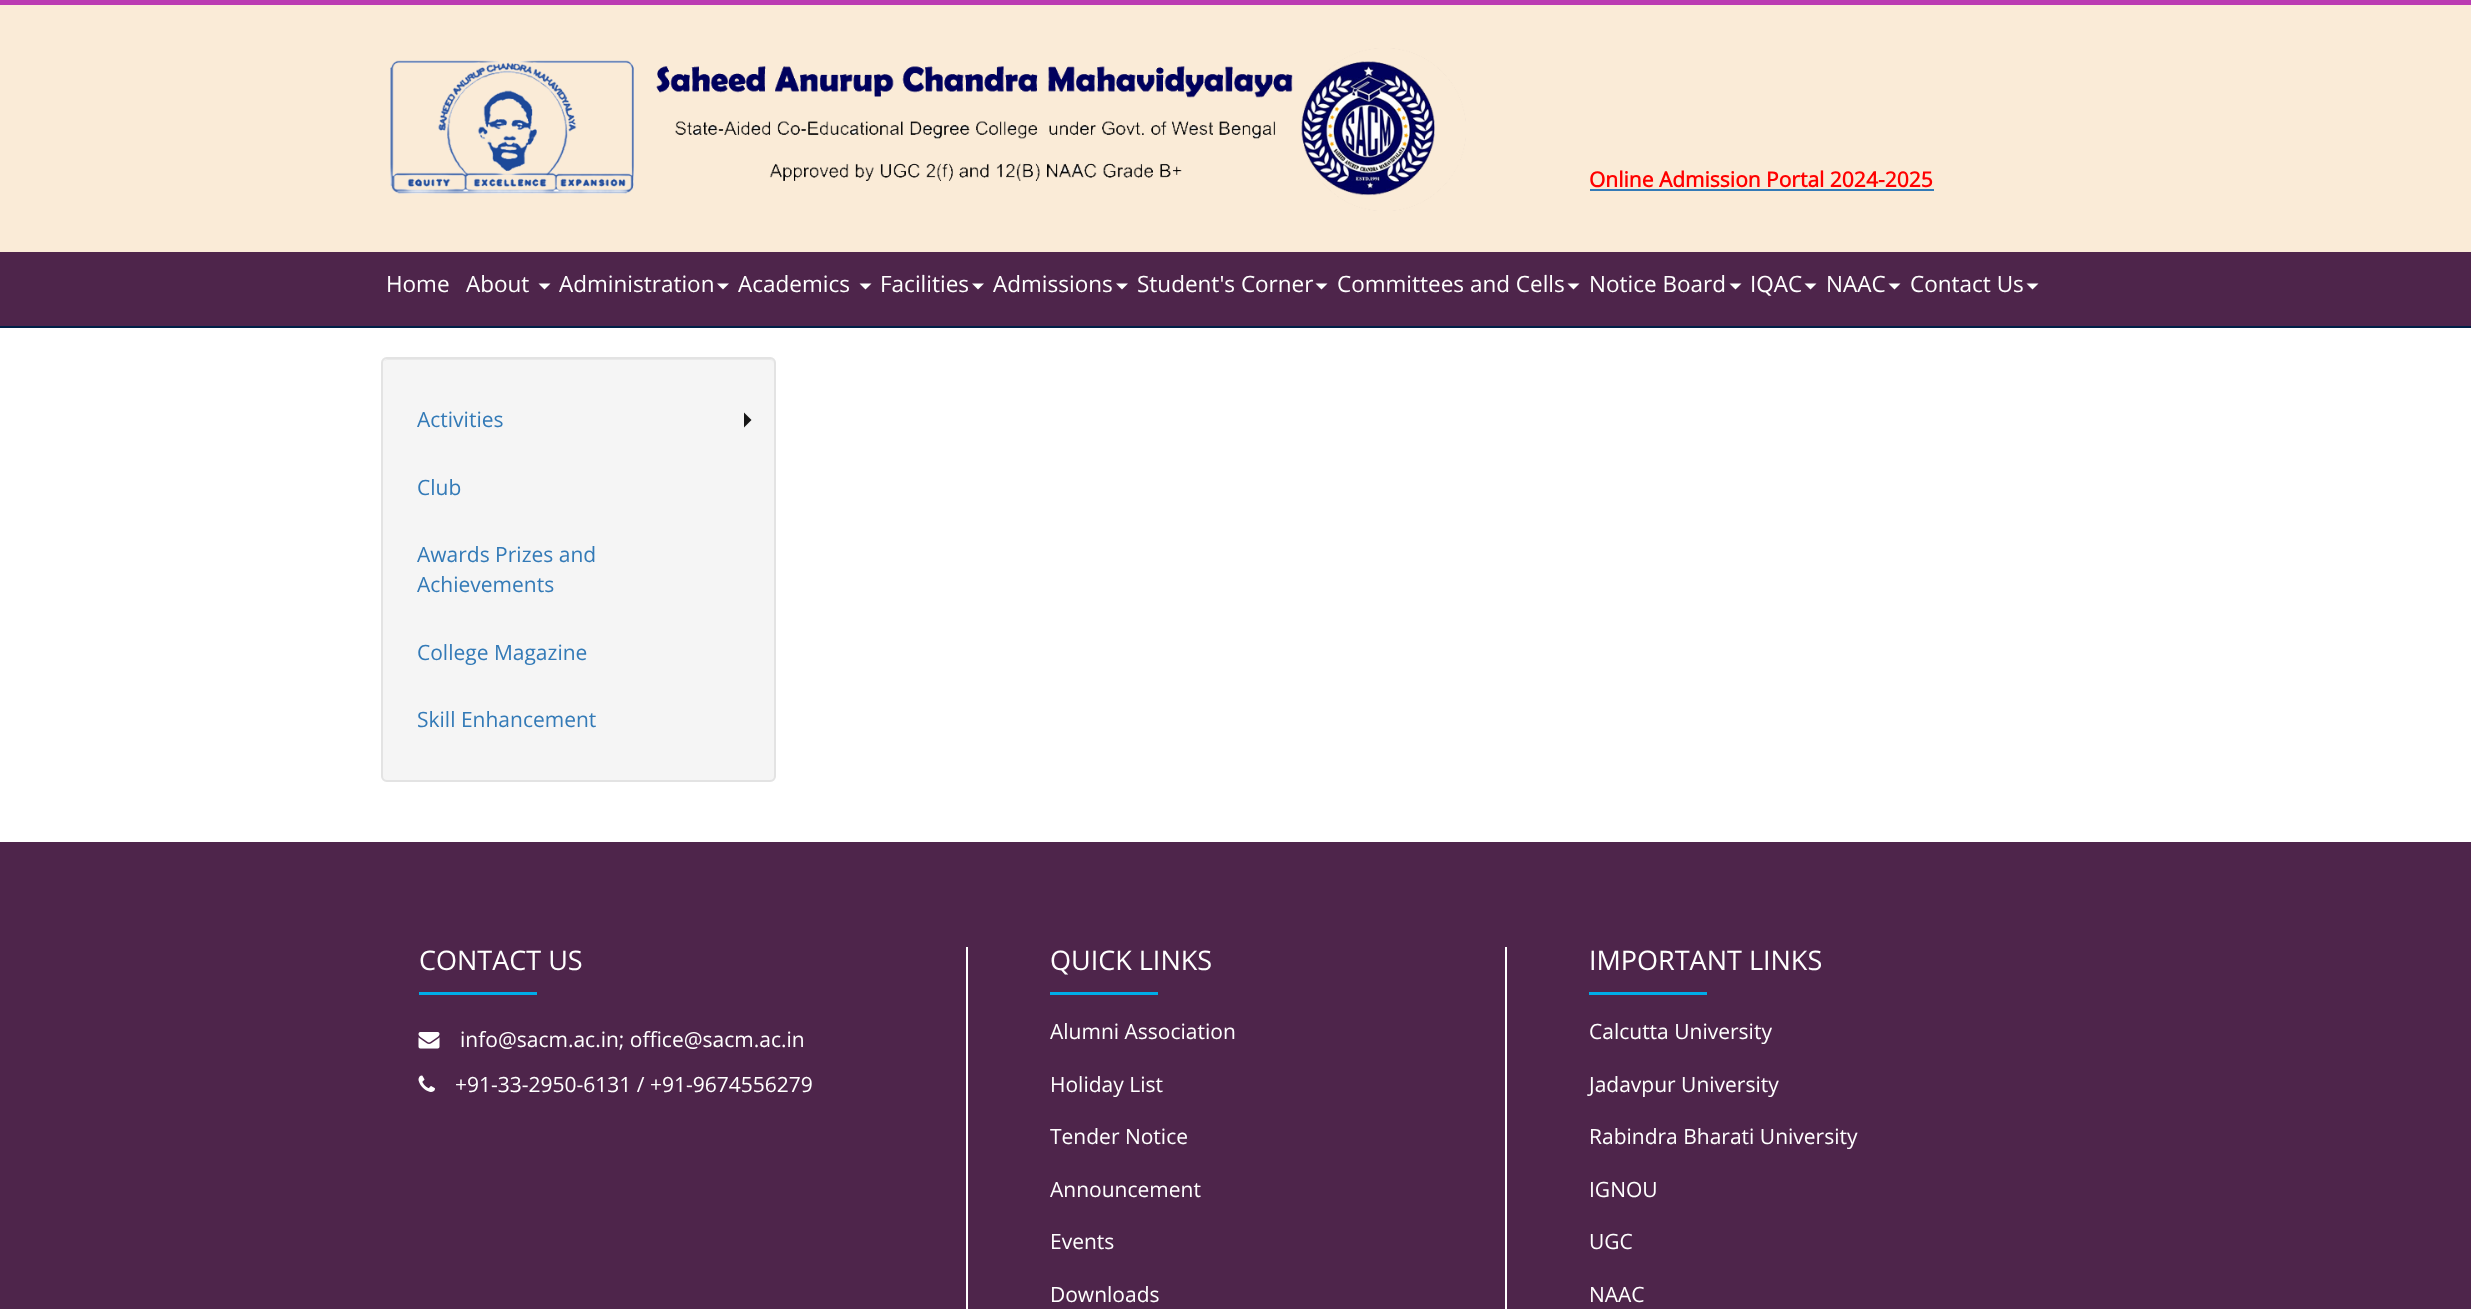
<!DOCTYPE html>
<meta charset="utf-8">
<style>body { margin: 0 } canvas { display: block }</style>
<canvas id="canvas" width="2471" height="1309"></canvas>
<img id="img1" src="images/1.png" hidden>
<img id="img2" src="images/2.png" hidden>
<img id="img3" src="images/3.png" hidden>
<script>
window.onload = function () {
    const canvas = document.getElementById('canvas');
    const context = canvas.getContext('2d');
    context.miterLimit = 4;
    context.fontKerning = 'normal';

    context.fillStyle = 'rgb(255, 255, 255)';
    context.fillRect(0, 0, 2471, 1309);
    context.fillStyle = 'rgb(187, 59, 178)';
    context.fillRect(0, 0, 2471, 5);
    context.fillStyle = 'rgb(250, 235, 215)';
    context.fillRect(0, 5, 2471, 247);
    context.drawImage(document.getElementById('img1'), 390, 48, 1076, 163);
    context.fillStyle = 'rgb(51, 122, 183)';
    context.fillRect(1590, 189, 344, 2);
    context.fillStyle = 'rgb(78, 37, 75)';
    context.fillRect(0, 252, 2471, 74);
    context.fillStyle = 'rgb(0, 33, 71)';
    context.fillRect(0, 326, 2471, 2);
    context.fillStyle = 'rgb(255, 255, 255)';
    context.beginPath();
    context.moveTo(538.5, 283.5);
    context.lineTo(550.5, 283.5);
    context.lineTo(544.5, 289.5);
    context.closePath();
    context.fill();
    context.beginPath();
    context.moveTo(717, 283.5);
    context.lineTo(729, 283.5);
    context.lineTo(723, 289.5);
    context.closePath();
    context.fill();
    context.beginPath();
    context.moveTo(859.5, 283.5);
    context.lineTo(871.5, 283.5);
    context.lineTo(865.5, 289.5);
    context.closePath();
    context.fill();
    context.beginPath();
    context.moveTo(972, 283.5);
    context.lineTo(984, 283.5);
    context.lineTo(978, 289.5);
    context.closePath();
    context.fill();
    context.beginPath();
    context.moveTo(1116, 283.5);
    context.lineTo(1128, 283.5);
    context.lineTo(1122, 289.5);
    context.closePath();
    context.fill();
    context.beginPath();
    context.moveTo(1315.5, 283.5);
    context.lineTo(1327.5, 283.5);
    context.lineTo(1321.5, 289.5);
    context.closePath();
    context.fill();
    context.beginPath();
    context.moveTo(1567.5, 283.5);
    context.lineTo(1579.5, 283.5);
    context.lineTo(1573.5, 289.5);
    context.closePath();
    context.fill();
    context.beginPath();
    context.moveTo(1729.5, 283.5);
    context.lineTo(1741.5, 283.5);
    context.lineTo(1735.5, 289.5);
    context.closePath();
    context.fill();
    context.beginPath();
    context.moveTo(1804.5, 283.5);
    context.lineTo(1816.5, 283.5);
    context.lineTo(1810.5, 289.5);
    context.closePath();
    context.fill();
    context.beginPath();
    context.moveTo(1888.5, 283.5);
    context.lineTo(1900.5, 283.5);
    context.lineTo(1894.5, 289.5);
    context.closePath();
    context.fill();
    context.beginPath();
    context.moveTo(2026.5, 283.5);
    context.lineTo(2038.5, 283.5);
    context.lineTo(2032.5, 289.5);
    context.closePath();
    context.fill();
    context.fillStyle = 'rgb(245, 245, 245)';
    context.beginPath();
    context.roundRect(381, 357, 395, 425, 6);
    context.fill();
    context.fillStyle = 'rgb(233, 233, 233)';
    context.beginPath();
    context.moveTo(387, 360);
    context.lineTo(770, 360);
    context.bezierCurveTo(772, 360, 774, 362, 774, 364);
    context.bezierCurveTo(774, 361, 772, 359, 769, 359);
    context.lineTo(388, 359);
    context.bezierCurveTo(386, 359, 385, 360, 384, 361);
    context.closePath();
    context.fill();
    context.beginPath();
    context.roundRect(382, 358, 393, 423, 5);
    context.strokeStyle = 'rgb(227, 227, 227)';
    context.lineWidth = 2;
    context.stroke();
    context.fillStyle = 'rgb(23, 23, 23)';
    context.beginPath();
    context.moveTo(744, 427.5);
    context.lineTo(744, 412.5);
    context.lineTo(751.5, 420);
    context.closePath();
    context.fill();
    context.fillStyle = 'rgb(78, 37, 75)';
    context.fillRect(0, 842, 2471, 467);
    context.fillStyle = 'rgb(0, 172, 232)';
    context.fillRect(419, 992, 118, 3);
    context.drawImage(document.getElementById('img2'), 418, 1032, 22, 17);
    context.drawImage(document.getElementById('img3'), 418, 1075, 17, 17);
    context.fillStyle = 'rgb(255, 255, 255)';
    context.fillRect(1505, 947, 2, 362);
    context.fillRect(966, 947, 2, 362);
    context.fillStyle = 'rgb(0, 172, 232)';
    context.fillRect(1050, 992, 108, 3);
    context.fillRect(1589, 992, 118, 3);
    context.font = 'bold 21px Open Sans';
    context.fillStyle = 'rgb(255, 0, 0)';
    context.fillText('Online Admission Portal 2024-2025', 1589, 187);
    context.font = '22.5px Open Sans';
    context.fillStyle = 'rgb(255, 255, 255)';
    context.fillText('Home', 386, 292);
    context.fillText('About', 466, 292);
    context.fillText('Administration', 559, 292);
    context.fillText('Academics', 738, 292);
    context.fillText('Facilities', 880, 292);
    context.fillText('Admissions', 993, 292);
    context.fillText('Student\'s Corner', 1137, 292);
    context.fillText('Committees and Cells', 1337, 292);
    context.fillText('Notice Board', 1589, 292);
    context.fillText('IQAC', 1750, 292);
    context.fillText('NAAC', 1826, 292);
    context.fillText('Contact Us', 1910, 292);
    context.font = '21px Open Sans';
    context.fillStyle = 'rgb(51, 122, 183)';
    context.fillText('Activities', 417, 427);
    context.fillText('Club', 417, 495);
    context.fillText('Awards Prizes and', 417, 562);
    context.fillText('Achievements', 417, 592);
    context.fillText('College Magazine', 417, 660);
    context.fillText('Skill Enhancement', 417, 727);
    context.font = '27px Open Sans';
    context.fillStyle = 'rgb(255, 255, 255)';
    context.fillText('CONTACT US', 419, 970);
    context.font = '21px Open Sans';
    context.fillText('info@sacm.ac.in; office@sacm.ac.in', 460, 1047);
    context.fillText('+91-33-2950-6131 / +91-9674556279', 455, 1092);
    context.font = '27px Open Sans';
    context.fillText('QUICK LINKS', 1050, 970);
    context.font = '21px Open Sans';
    context.fillText('Alumni Association', 1050, 1039);
    context.fillText('Holiday List', 1050, 1092);
    context.fillText('Tender Notice', 1050, 1144);
    context.fillText('Announcement', 1050, 1197);
    context.fillText('Events', 1050, 1249);
    context.fillText('Downloads', 1050, 1302);
    context.font = '27px Open Sans';
    context.fillText('IMPORTANT LINKS', 1589, 970);
    context.font = '21px Open Sans';
    context.fillText('Calcutta University', 1589, 1039);
    context.fillText('Jadavpur University', 1589, 1092);
    context.fillText('Rabindra Bharati University', 1589, 1144);
    context.fillText('IGNOU', 1589, 1197);
    context.fillText('UGC', 1589, 1249);
    context.fillText('NAAC', 1589, 1302);
};
</script>
